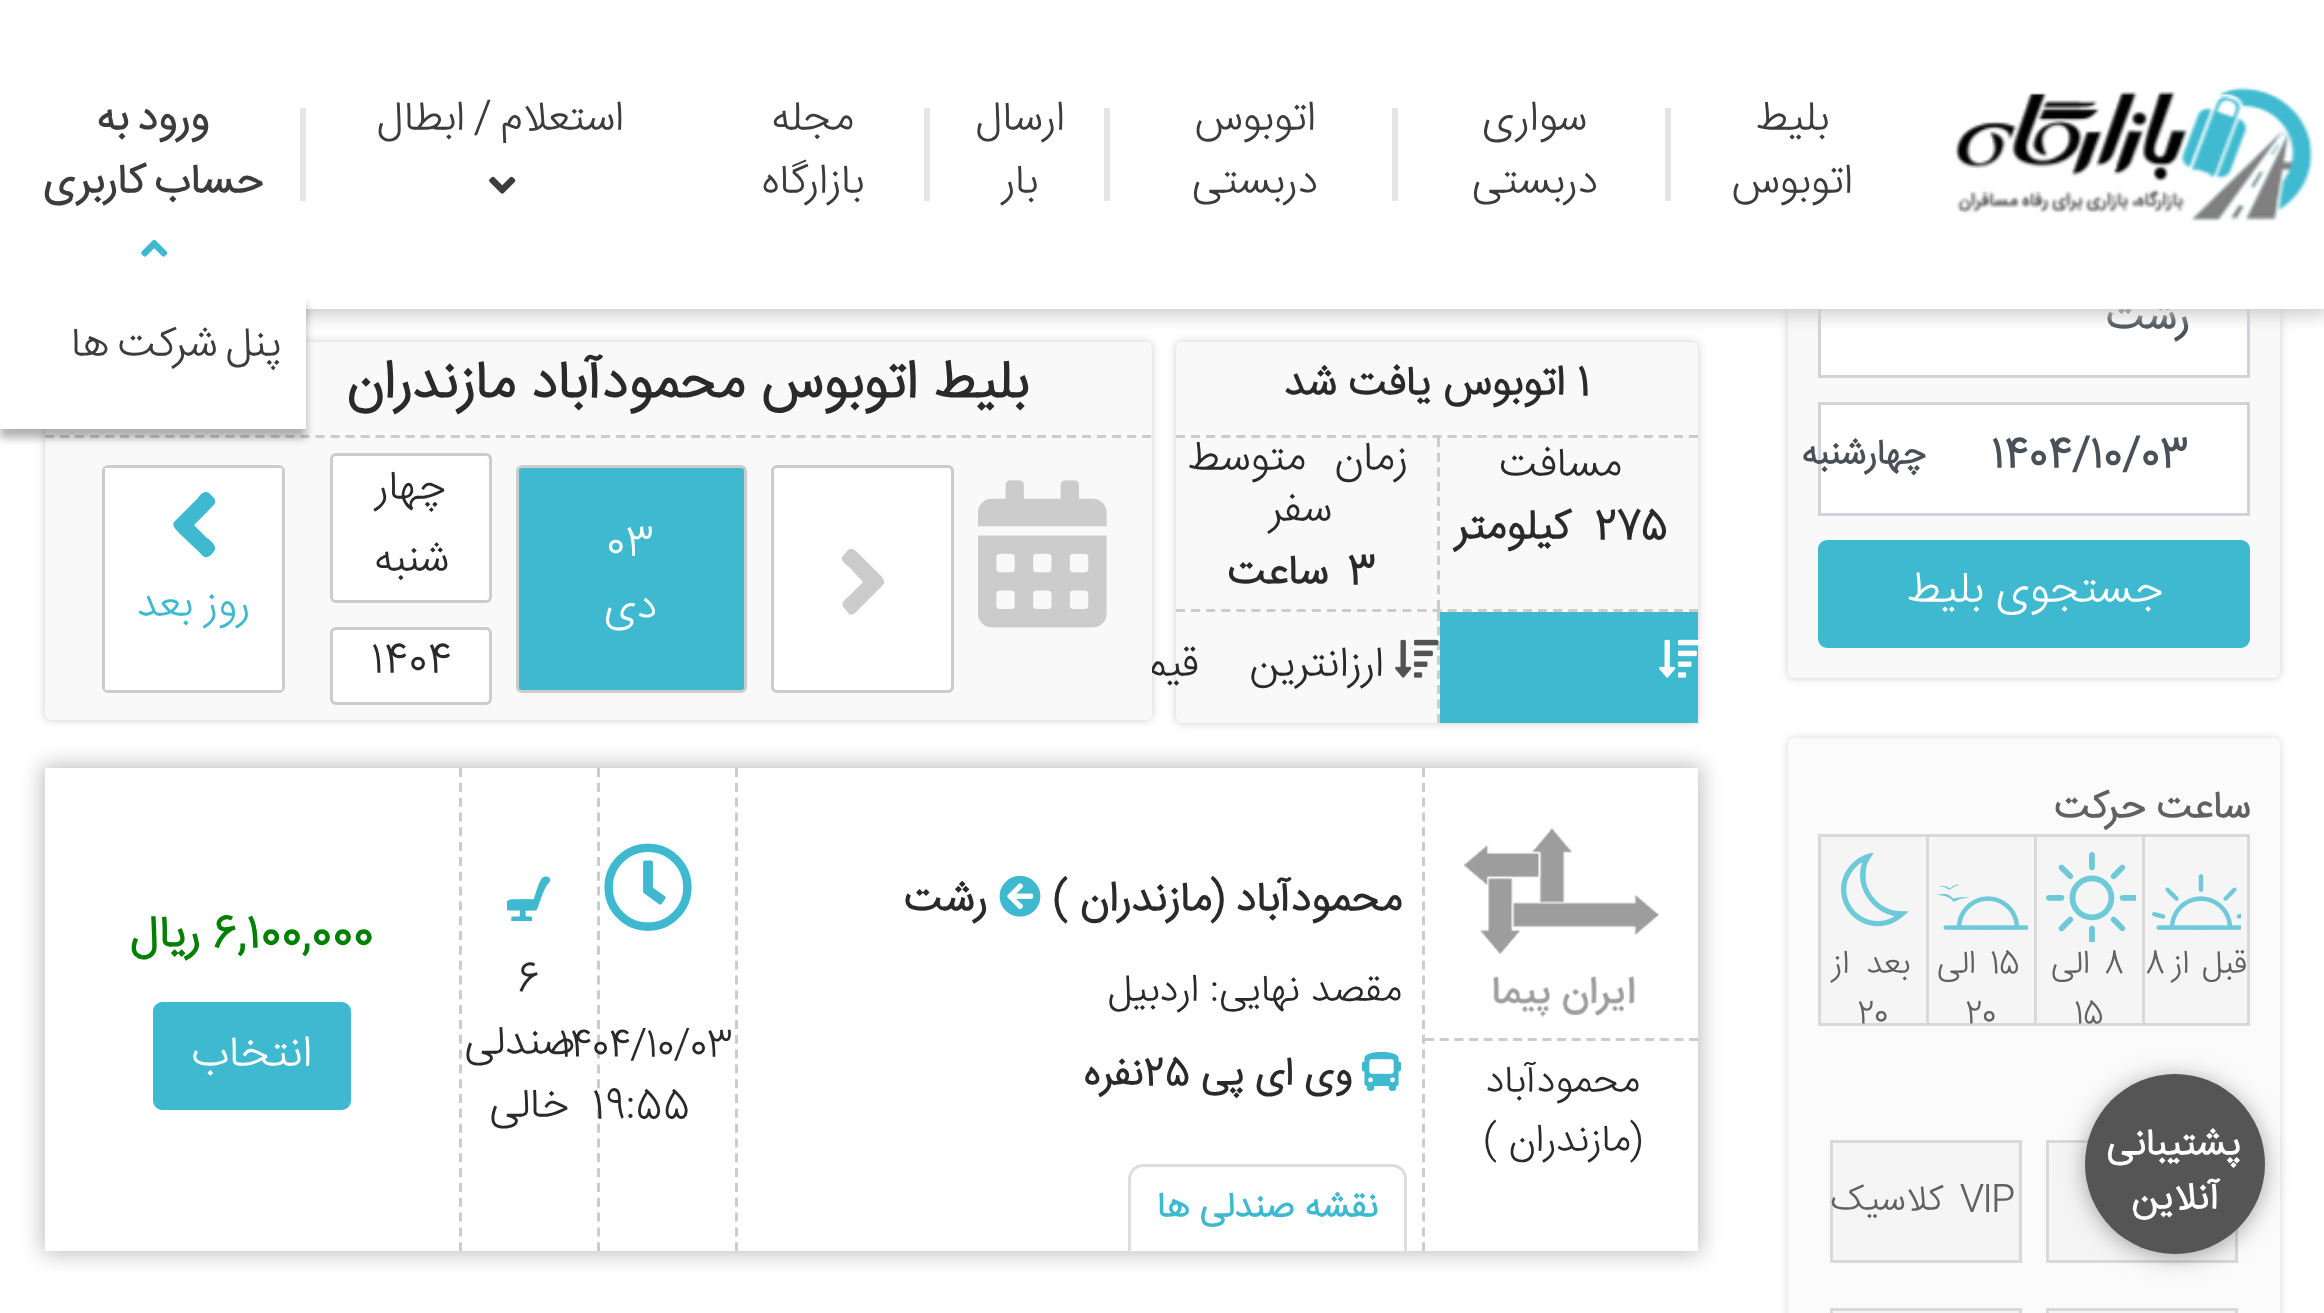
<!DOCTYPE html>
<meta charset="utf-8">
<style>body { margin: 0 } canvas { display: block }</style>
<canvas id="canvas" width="2324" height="1313"></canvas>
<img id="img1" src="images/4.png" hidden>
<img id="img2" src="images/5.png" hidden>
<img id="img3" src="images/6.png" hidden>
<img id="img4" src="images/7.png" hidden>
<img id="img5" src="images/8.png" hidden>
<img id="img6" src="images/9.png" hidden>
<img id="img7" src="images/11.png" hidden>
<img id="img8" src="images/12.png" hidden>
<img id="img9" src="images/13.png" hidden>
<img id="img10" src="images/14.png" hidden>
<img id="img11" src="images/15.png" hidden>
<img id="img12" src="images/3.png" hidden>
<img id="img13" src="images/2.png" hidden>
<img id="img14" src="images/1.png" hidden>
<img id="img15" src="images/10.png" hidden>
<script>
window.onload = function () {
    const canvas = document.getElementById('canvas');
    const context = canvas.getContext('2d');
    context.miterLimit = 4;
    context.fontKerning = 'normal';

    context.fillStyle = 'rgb(255, 255, 255)';
    context.fillRect(0, 0, 2324, 1313);
    context.fillStyle = 'rgb(204, 204, 204)';
    context.filter = 'blur(4.5px)';
    context.beginPath();
    context.roundRect(1788, 96, 492, 582, 6);
    context.fill();
    context.filter = 'none';
    context.fillStyle = 'rgb(249, 249, 249)';
    context.beginPath();
    context.roundRect(1788, 96, 492, 582, 6);
    context.fill();
    context.fillStyle = 'rgb(255, 255, 255)';
    context.fillRect(1821, 309, 426, 66);
    context.strokeStyle = 'rgb(206, 212, 218)';
    context.lineWidth = 3;
    context.strokeRect(1819.5, 265.5, 429, 111);
    context.beginPath();
    context.rect(1819.5, 403.5, 429, 111);
    context.fill();
    context.stroke();
    context.fillStyle = 'rgb(63, 185, 207)';
    context.beginPath();
    context.roundRect(1819.5, 541.5, 429, 105, 7.5);
    context.fill();
    context.strokeStyle = 'rgb(63, 185, 207)';
    context.stroke();
    context.fillStyle = 'rgb(217, 217, 217)';
    context.filter = 'blur(4.5px)';
    context.beginPath();
    context.roundRect(1788, 738, 492, 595, 6);
    context.fill();
    context.filter = 'none';
    context.fillStyle = 'rgb(251, 251, 251)';
    context.beginPath();
    context.roundRect(1788, 738, 492, 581, 6);
    context.fill();
    context.fillStyle = 'rgb(245, 245, 245)';
    context.beginPath();
    context.rect(2143.5, 835.5, 105, 189);
    context.fill();
    context.strokeStyle = 'rgb(217, 217, 217)';
    context.stroke();
    context.drawImage(document.getElementById('img1'), 2152, 874, 89, 56);
    context.fillRect(2037, 837, 105, 186);
    context.fillStyle = 'rgb(217, 217, 217)';
    context.fillRect(1818, 834, 324, 3);
    context.fillRect(1818, 1023, 324, 3);
    context.fillRect(2034, 834, 3, 192);
    context.drawImage(document.getElementById('img2'), 2046, 852, 90, 90);
    context.fillStyle = 'rgb(245, 245, 245)';
    context.fillRect(1929, 837, 105, 186);
    context.fillStyle = 'rgb(217, 217, 217)';
    context.fillRect(1926, 834, 3, 192);
    context.drawImage(document.getElementById('img3'), 1938, 884, 90, 46);
    context.fillStyle = 'rgb(245, 245, 245)';
    context.fillRect(1821, 837, 105, 186);
    context.fillStyle = 'rgb(217, 217, 217)';
    context.fillRect(1818, 834, 3, 192);
    context.drawImage(document.getElementById('img4'), 1841, 852, 68, 75);
    context.fillStyle = 'rgb(245, 245, 245)';
    context.beginPath();
    context.rect(2047.5, 1141.5, 189, 120);
    context.fill();
    context.stroke();
    context.beginPath();
    context.rect(1831.5, 1141.5, 189, 120);
    context.fill();
    context.stroke();
    context.beginPath();
    context.rect(2047.5, 1309.5, 189, 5);
    context.fill();
    context.stroke();
    context.beginPath();
    context.rect(1831.5, 1309.5, 189, 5);
    context.fill();
    context.stroke();
    context.fillStyle = 'rgb(204, 204, 204)';
    context.filter = 'blur(4.5px)';
    context.beginPath();
    context.roundRect(1176, 342, 522, 381, 6);
    context.fill();
    context.filter = 'none';
    context.fillStyle = 'rgb(249, 249, 249)';
    context.beginPath();
    context.roundRect(1176, 342, 522, 381, 6);
    context.fill();
    context.beginPath();
    context.moveTo(1176, 436.5);
    context.lineTo(1698, 436.5);
    context.strokeStyle = 'rgb(204, 204, 204)';
    context.setLineDash([9, 6.09]);
    context.stroke();
    context.beginPath();
    context.moveTo(1438.5, 438);
    context.lineTo(1438.5, 609);
    context.setLineDash([9, 5.73]);
    context.stroke();
    context.beginPath();
    context.moveTo(1176, 610.5);
    context.lineTo(1698, 610.5);
    context.setLineDash([9, 6.09]);
    context.stroke();
    context.beginPath();
    context.moveTo(1438.5, 612);
    context.lineTo(1438.5, 723);
    context.setLineDash([9, 5.58]);
    context.stroke();
    context.fillStyle = 'rgb(63, 185, 207)';
    context.fillRect(1440, 612, 258, 111);
    context.drawImage(document.getElementById('img5'), 1659, 639, 43, 39);
    context.drawImage(document.getElementById('img6'), 1395, 639, 44, 39);
    context.fillStyle = 'rgb(204, 204, 204)';
    context.filter = 'blur(4.5px)';
    context.beginPath();
    context.roundRect(45, 342, 1107, 378, 6);
    context.fill();
    context.filter = 'none';
    context.save();
    context.beginPath();
    context.moveTo(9, 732);
    context.lineTo(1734, 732);
    context.lineTo(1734, 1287);
    context.lineTo(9, 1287);
    context.closePath();
    context.moveTo(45, 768);
    context.lineTo(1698, 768);
    context.lineTo(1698, 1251);
    context.lineTo(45, 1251);
    context.closePath();
    context.clip('evenodd');
    context.fillStyle = 'rgba(95, 95, 95, 0.4)';
    context.filter = 'blur(10.5px)';
    context.beginPath();
    context.rect(42, 765, 1659, 489);
    context.fill();
    context.filter = 'none';
    context.restore();
    context.beginPath();
    context.moveTo(1423.5, 768);
    context.lineTo(1423.5, 1251);
    context.setLineDash([9, 5.82]);
    context.stroke();
    context.drawImage(document.getElementById('img7'), 1464, 828, 195, 190);
    context.beginPath();
    context.moveTo(1425, 1039.5);
    context.lineTo(1698, 1039.5);
    context.setLineDash([9, 5.67]);
    context.stroke();
    context.beginPath();
    context.moveTo(736.5, 768);
    context.lineTo(736.5, 1251);
    context.setLineDash([9, 5.82]);
    context.stroke();
    context.drawImage(document.getElementById('img8'), 999, 875, 42, 42);
    context.drawImage(document.getElementById('img9'), 1362, 1051, 39, 40);
    context.beginPath();
    context.moveTo(598.5, 768);
    context.lineTo(598.5, 1251);
    context.stroke();
    context.drawImage(document.getElementById('img10'), 604, 843, 88, 88);
    context.beginPath();
    context.moveTo(460.5, 768);
    context.lineTo(460.5, 1251);
    context.stroke();
    context.drawImage(document.getElementById('img11'), 507, 876, 44, 45);
    context.fillStyle = 'rgb(63, 185, 207)';
    context.beginPath();
    context.roundRect(154.5, 1003.5, 195, 105, 7.5);
    context.fill();
    context.strokeStyle = 'rgb(63, 185, 207)';
    context.setLineDash([]);
    context.stroke();
    context.fillStyle = 'rgb(255, 255, 255)';
    context.beginPath();
    context.roundRect(1129.5, 1165.5, 276, 87, [13.5, 13.5, 0, 0]);
    context.fill();
    context.strokeStyle = 'rgb(221, 221, 221)';
    context.stroke();
    context.fillStyle = 'rgba(0, 0, 0, 0.15)';
    context.filter = 'blur(15px)';
    context.beginPath();
    context.roundRect(2085, 1077, 180, 180, 90);
    context.fill();
    context.filter = 'none';
    context.fillStyle = 'rgba(0, 0, 0, 0.2)';
    context.filter = 'blur(9px)';
    context.beginPath();
    context.roundRect(2085, 1077, 180, 180, 90);
    context.fill();
    context.filter = 'none';
    context.fillStyle = 'rgb(85, 85, 85)';
    context.beginPath();
    context.arc(2175, 1164, 90, 0, 2 * Math.PI);
    context.fill();
    context.direction = 'rtl';
    context.font = 'bold 42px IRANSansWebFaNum';
    context.fillStyle = 'rgb(73, 80, 87)';
    context.fillText('رشت', 2189, 329);
    context.direction = 'ltr';
    context.fillText('1404/10/03', 1991, 467);
    context.letterSpacing = '-3px';
    context.direction = 'rtl';
    context.font = 'bold 36px IRANSansWebFaNum';
    context.fillText('چهارشنبه', 1926, 464);
    context.letterSpacing = '0px';
    context.font = '300 44px IRANSansWebFaNum';
    context.fillStyle = 'rgb(255, 255, 255)';
    context.fillText('جستجوی بلیط', 2163, 602);
    context.font = 'bold 39px IRANSansWebFaNum';
    context.fillStyle = 'rgb(97, 97, 97)';
    context.fillText('ساعت حرکت', 2250, 818);
    context.letterSpacing = '-1.5px';
    context.wordSpacing = '5px';
    context.font = '300 33px IRANSansWebFaNum';
    context.fillText('قبل از', 2247, 973);
    context.wordSpacing = '0px';
    context.direction = 'ltr';
    context.fillText('8', 2145, 973);
    context.fillText('8', 2104, 973);
    context.direction = 'rtl';
    context.fillText('الی', 2090, 973);
    context.direction = 'ltr';
    context.fillText('15', 2074, 1023);
    context.fillText('15', 1990, 973);
    context.direction = 'rtl';
    context.fillText('الی', 1976, 973);
    context.direction = 'ltr';
    context.fillText('20', 1965, 1023);
    context.wordSpacing = '9px';
    context.direction = 'rtl';
    context.fillText('بعد از', 1910, 973);
    context.wordSpacing = '0px';
    context.direction = 'ltr';
    context.fillText('20', 1857, 1023);
    context.font = '300 36px IRANSansWebFaNum';
    context.fillText('VIP', 1960, 1210);
    context.direction = 'rtl';
    context.fillText('کلاسیک', 1943, 1210);
    context.letterSpacing = '0px';
    context.direction = 'ltr';
    context.font = 'bold 42px IRANSansWebFaNum';
    context.fillStyle = 'rgb(42, 42, 42)';
    context.fillText('1', 1577, 395);
    context.direction = 'rtl';
    context.fillText('اتوبوس یافت شد', 1565, 395);
    context.letterSpacing = '-1.75px';
    context.font = '300 42px IRANSansWebFaNum';
    context.fillText('مسافت', 1622, 476);
    context.direction = 'ltr';
    context.font = 'bold 42px IRANSansWebFaNum';
    context.fillText('275', 1594, 539);
    context.direction = 'rtl';
    context.fillText('کیلومتر', 1570, 539);
    context.wordSpacing = '18px';
    context.font = '300 42px IRANSansWebFaNum';
    context.fillText('زمان متوسط', 1408, 470);
    context.wordSpacing = '0px';
    context.fillText('سفر', 1332, 521);
    context.direction = 'ltr';
    context.font = 'bold 42px IRANSansWebFaNum';
    context.fillText('3', 1347, 584);
    context.direction = 'rtl';
    context.fillText('ساعت', 1328, 584);
    context.letterSpacing = '-3px';
    context.wordSpacing = '42px';
    context.font = '300 42px IRANSansWebFaNum';
    context.fillText('ارزانترین قیمت', 1384, 676);
    context.fillStyle = 'rgb(249, 249, 249)';
    context.beginPath();
    context.roundRect(45, 342, 1107, 378, 6);
    context.fill();
    context.fillStyle = 'rgb(204, 204, 204)';
    context.filter = 'blur(9px)';
    context.beginPath();
    context.rect(-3, 0, 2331, 315);
    context.fill();
    context.filter = 'none';
    context.fillStyle = 'rgb(255, 255, 255)';
    context.fillRect(0, 0, 2324, 309);
    context.fillStyle = 'rgb(229, 229, 229)';
    context.fillRect(300, 108, 6, 93);
    context.drawImage(document.getElementById('img12'), 141, 239, 27, 18);
    context.letterSpacing = '0px';
    context.wordSpacing = '-3px';
    context.font = 'bold 42px IRANSansWebFaNum';
    context.fillStyle = 'rgb(60, 60, 60)';
    context.fillText('حساب کاربری', 263, 193);
    context.fillText('ورود به', 209, 130);
    context.drawImage(document.getElementById('img13'), 489, 176, 27, 18);
    context.font = '300 42px IRANSansWebFaNum';
    context.fillText('استعلام / ابطال', 624, 130);
    context.fillStyle = 'rgb(229, 229, 229)';
    context.fillRect(924, 108, 6, 93);
    context.wordSpacing = '0px';
    context.fillStyle = 'rgb(60, 60, 60)';
    context.fillText('بازارگاه', 864, 193);
    context.fillText('مجله', 854, 130);
    context.fillStyle = 'rgb(229, 229, 229)';
    context.fillRect(1104, 108, 6, 93);
    context.fillStyle = 'rgb(60, 60, 60)';
    context.fillText('بار', 1038, 193);
    context.fillText('ارسال', 1065, 130);
    context.fillStyle = 'rgb(229, 229, 229)';
    context.fillRect(1392, 108, 6, 93);
    context.fillStyle = 'rgb(60, 60, 60)';
    context.fillText('دربستی', 1318, 193);
    context.fillText('اتوبوس', 1316, 130);
    context.fillStyle = 'rgb(229, 229, 229)';
    context.fillRect(1665, 108, 6, 93);
    context.fillStyle = 'rgb(60, 60, 60)';
    context.fillText('دربستی', 1598, 193);
    context.fillText('سواری', 1587, 130);
    context.fillText('اتوبوس', 1853, 193);
    context.fillText('بلیط', 1829, 130);
    context.drawImage(document.getElementById('img14'), 1954, 87, 360, 135);
    context.beginPath();
    context.moveTo(45, 436.5);
    context.lineTo(1152, 436.5);
    context.strokeStyle = 'rgb(204, 204, 204)';
    context.setLineDash([9, 6.03]);
    context.stroke();
    context.fillStyle = 'rgba(0, 0, 0, 0.3)';
    context.filter = 'blur(4.5px)';
    context.beginPath();
    context.rect(0, 303, 306, 135);
    context.fill();
    context.filter = 'none';
    context.fillStyle = 'rgb(255, 255, 255)';
    context.fillRect(0, 295, 306, 134);
    context.wordSpacing = '-3px';
    context.fillStyle = 'rgb(60, 60, 60)';
    context.fillText('پنل شرکت ها', 282, 356);
    context.wordSpacing = '0px';
    context.font = 'bold 54px IRANSansWebFaNum';
    context.fillStyle = 'rgb(42, 42, 42)';
    context.fillText('بلیط اتوبوس', 1028, 398);
    context.fillText('محمودآباد مازندران', 745, 398);
    context.drawImage(document.getElementById('img15'), 978, 480, 129, 148);
    context.fillStyle = 'rgb(255, 255, 255)';
    context.beginPath();
    context.roundRect(772.5, 466.5, 180, 225, 4.5);
    context.fill();
    context.setLineDash([]);
    context.stroke();
    context.fillStyle = 'rgb(204, 204, 204)';
    context.beginPath();
    context.moveTo(883, 585);
    context.lineTo(860, 608);
    context.bezierCurveTo(857, 611, 853, 617, 849, 614);
    context.lineTo(845, 609);
    context.bezierCurveTo(839, 603, 845, 600, 850, 595);
    context.lineTo(863, 582);
    context.lineTo(850, 568);
    context.bezierCurveTo(848, 566, 840, 561, 842, 557);
    context.lineTo(847, 551);
    context.bezierCurveTo(852, 546, 855, 550, 860, 555);
    context.lineTo(878, 573);
    context.bezierCurveTo(881, 576, 887, 581, 883, 585);
    context.closePath();
    context.fill();
    context.fillStyle = 'rgb(63, 185, 207)';
    context.beginPath();
    context.roundRect(517.5, 466.5, 228, 225, 4.5);
    context.fill();
    context.stroke();
    context.direction = 'ltr';
    context.font = '300 42px IRANSansWebFaNum';
    context.fillStyle = 'rgb(255, 255, 255)';
    context.fillText('03', 606, 555);
    context.direction = 'rtl';
    context.fillText('دی', 657, 618);
    context.beginPath();
    context.roundRect(331.5, 454.5, 159, 147, 4.5);
    context.fill();
    context.stroke();
    context.fillStyle = 'rgb(42, 42, 42)';
    context.fillText('چهار', 446, 499);
    context.fillText('شنبه', 449, 571);
    context.fillStyle = 'rgb(255, 255, 255)';
    context.beginPath();
    context.roundRect(331.5, 628.5, 159, 75, 4.5);
    context.fill();
    context.stroke();
    context.direction = 'ltr';
    context.fillStyle = 'rgb(42, 42, 42)';
    context.fillText('1404', 371, 672);
    context.beginPath();
    context.roundRect(103.5, 466.5, 180, 225, 4.5);
    context.stroke();
    context.fillStyle = 'rgb(255, 255, 255)';
    context.fillRect(105, 468, 177, 222);
    context.fillStyle = 'rgb(63, 185, 207)';
    context.beginPath();
    context.moveTo(175, 521);
    context.lineTo(198, 498);
    context.bezierCurveTo(200, 495, 204, 490, 209, 493);
    context.lineTo(213, 497);
    context.bezierCurveTo(219, 503, 212, 506, 207, 512);
    context.lineTo(194, 525);
    context.lineTo(207, 538);
    context.bezierCurveTo(210, 540, 215, 544, 215, 548);
    context.bezierCurveTo(216, 550, 213, 552, 212, 554);
    context.bezierCurveTo(205, 560, 204, 557, 198, 551);
    context.lineTo(179, 533);
    context.bezierCurveTo(177, 530, 170, 525, 175, 521);
    context.closePath();
    context.fill();
    context.direction = 'rtl';
    context.fillText('روز بعد', 250, 616);
    context.font = '300 39px IRANSansWebFaNum';
    context.fillStyle = 'rgb(42, 42, 42)';
    context.fillText('محمودآباد', 1640, 1092);
    context.fillText('(مازندران )', 1642, 1151);
    context.font = 'bold 42px IRANSansWebFaNum';
    context.fillText('محمودآباد (مازندران )', 1402, 911);
    context.fillText('رشت', 987, 911);
    context.font = '300 39px IRANSansWebFaNum';
    context.fillText('مقصد نهایی: اردبیل', 1402, 1001);
    context.font = 'bold 39px IRANSansWebFaNum';
    context.fillText('وی ای پی', 1352, 1085);
    context.direction = 'ltr';
    context.fillText('25', 1143, 1085);
    context.direction = 'rtl';
    context.fillText('نفره', 1143, 1085);
    context.letterSpacing = '-1px';
    context.direction = 'ltr';
    context.font = '300 39px IRANSansWebFaNum';
    context.fillText('1404/10/03', 559, 1056);
    context.letterSpacing = '0px';
    context.font = '300 42px IRANSansWebFaNum';
    context.fillText('19:55', 592, 1118);
    context.fillText('6', 517, 991);
    context.direction = 'rtl';
    context.fillText('صندلی', 575, 1054);
    context.fillText('خالی', 569, 1117);
    context.direction = 'ltr';
    context.font = 'bold 45px IRANSansWebFaNum';
    context.fillStyle = 'rgb(0, 128, 0)';
    context.fillText('6,100,000', 212, 947);
    context.direction = 'rtl';
    context.fillText('ریال', 200, 947);
    context.font = '300 44px IRANSansWebFaNum';
    context.fillStyle = 'rgb(255, 255, 255)';
    context.fillText('انتخاب', 312, 1066);
    context.font = 'bold 36px IRANSansWebFaNum';
    context.fillStyle = 'rgb(63, 185, 207)';
    context.fillText('نقشه صندلی ها', 1378, 1217);
    context.font = 'bold 38px IRANSansWebFaNum';
    context.fillStyle = 'rgb(255, 255, 255)';
    context.fillText('پشتیبانی', 2241, 1155);
    context.fillText('آنلاین', 2219, 1209);
};
</script>
